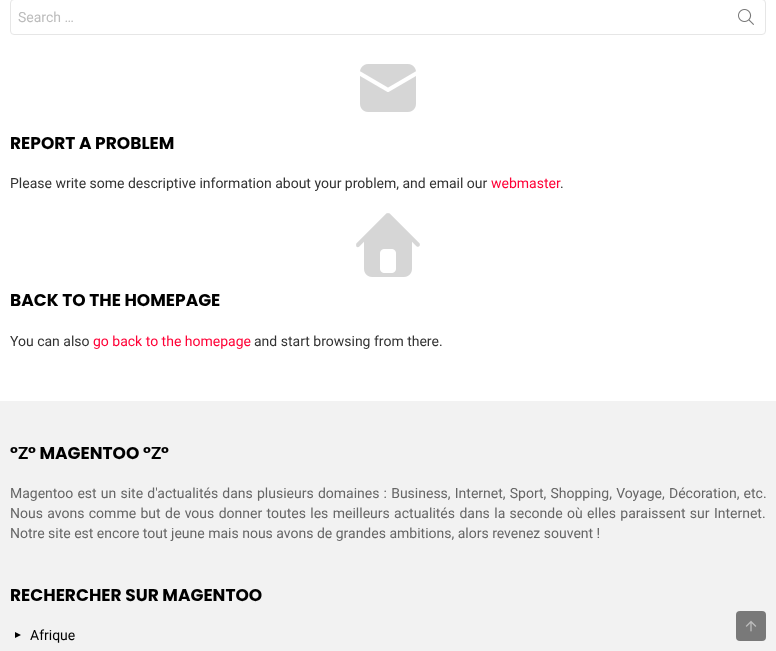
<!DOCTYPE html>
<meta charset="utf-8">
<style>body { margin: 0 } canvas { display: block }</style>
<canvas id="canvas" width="776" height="651"></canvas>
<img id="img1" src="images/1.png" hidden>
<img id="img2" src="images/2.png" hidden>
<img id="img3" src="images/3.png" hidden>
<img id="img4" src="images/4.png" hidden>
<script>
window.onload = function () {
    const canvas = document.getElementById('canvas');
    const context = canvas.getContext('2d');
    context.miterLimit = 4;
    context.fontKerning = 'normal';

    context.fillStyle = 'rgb(255, 255, 255)';
    context.fillRect(0, 0, 776, 651);
    context.beginPath();
    context.roundRect(10.5, -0.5, 755, 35, 3.5);
    context.strokeStyle = 'rgb(230, 230, 230)';
    context.stroke();
    context.drawImage(document.getElementById('img1'), 738, 9, 16, 16);
    context.drawImage(document.getElementById('img2'), 360, 64, 56, 48);
    context.drawImage(document.getElementById('img3'), 356, 213, 64, 64);
    context.fillStyle = 'rgb(242, 242, 242)';
    context.fillRect(0, 401, 776, 250);
    context.fillStyle = 'rgb(0, 0, 0)';
    context.beginPath();
    context.moveTo(21, 635);
    context.lineTo(15, 632);
    context.lineTo(15, 638);
    context.closePath();
    context.fill();
    context.fillStyle = 'rgb(121, 121, 121)';
    context.beginPath();
    context.roundRect(736, 611, 30, 30, 4);
    context.fill();
    context.drawImage(document.getElementById('img4'), 745, 620, 12, 12);
    context.font = '14px Roboto';
    context.fillStyle = 'rgb(188, 188, 188)';
    context.fillText('Search …', 18, 22);
    context.font = 'bold 17px Poppins';
    context.fillStyle = 'rgb(0, 0, 0)';
    context.fillText('REPORT A PROBLEM', 10, 149);
    context.font = '14px Roboto';
    context.fillStyle = 'rgb(51, 51, 51)';
    context.fillText('Please write some descriptive information about your problem, and email our', 10, 188);
    context.fillStyle = 'rgb(255, 0, 54)';
    context.fillText('webmaster', 491, 188);
    context.fillStyle = 'rgb(51, 51, 51)';
    context.fillText('.', 560, 188);
    context.font = 'bold 17px Poppins';
    context.fillStyle = 'rgb(0, 0, 0)';
    context.fillText('BACK TO THE HOMEPAGE', 10, 306);
    context.font = '14px Roboto';
    context.fillStyle = 'rgb(51, 51, 51)';
    context.fillText('You can also', 10, 346);
    context.fillStyle = 'rgb(255, 0, 54)';
    context.fillText('go back to the homepage', 93, 346);
    context.fillStyle = 'rgb(51, 51, 51)';
    context.fillText('and start browsing from there.', 254, 346);
    context.font = 'bold 17px Poppins';
    context.fillStyle = 'rgb(0, 0, 0)';
    context.fillText('°', 10, 459);
    context.font = 'bold 17px Roboto';
    context.fillText('Ζ', 18, 459);
    context.font = 'bold 17px Poppins';
    context.fillText('° MAGENTOO °', 28, 459);
    context.font = 'bold 17px Roboto';
    context.fillText('Ζ', 151, 459);
    context.font = 'bold 17px Poppins';
    context.fillText('°', 161, 459);
    context.wordSpacing = '0.7px';
    context.font = '14px Roboto';
    context.fillStyle = 'rgb(102, 102, 102)';
    context.fillText('Magentoo est un site d\'actualités dans plusieurs domaines : Business, Internet, Sport, Shopping, Voyage, Décoration, etc.', 10, 498);
    context.wordSpacing = '0.9px';
    context.fillText('Nous avons comme but de vous donner toutes les meilleurs actualités dans la seconde où elles paraissent sur Internet.', 10, 518);
    context.wordSpacing = '0px';
    context.fillText('Notre site est encore tout jeune mais nous avons de grandes ambitions, alors revenez souvent !', 10, 538);
    context.font = 'bold 17px Poppins';
    context.fillStyle = 'rgb(0, 0, 0)';
    context.fillText('RECHERCHER SUR MAGENTOO', 10, 601);
    context.font = '14px Roboto';
    context.fillText('Afrique', 30, 640);
};
</script>
